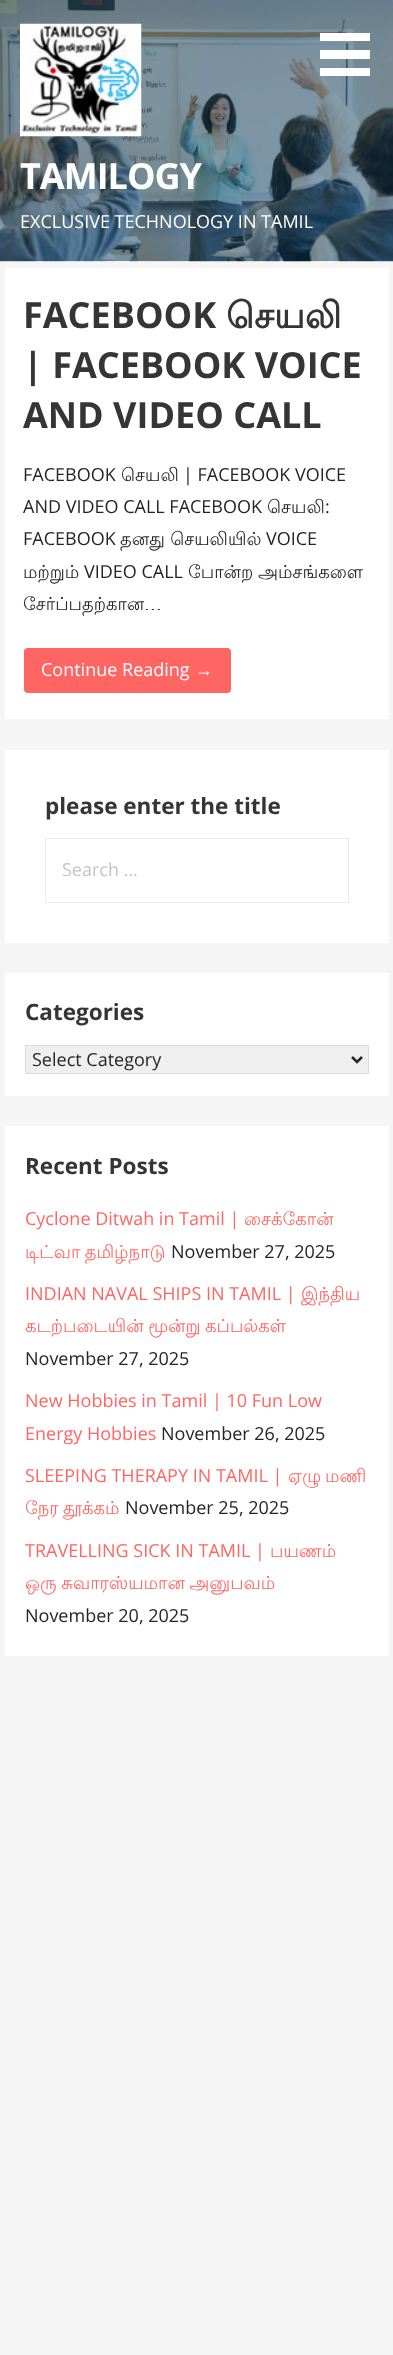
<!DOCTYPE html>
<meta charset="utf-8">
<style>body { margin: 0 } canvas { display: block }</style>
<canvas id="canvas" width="393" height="2355"></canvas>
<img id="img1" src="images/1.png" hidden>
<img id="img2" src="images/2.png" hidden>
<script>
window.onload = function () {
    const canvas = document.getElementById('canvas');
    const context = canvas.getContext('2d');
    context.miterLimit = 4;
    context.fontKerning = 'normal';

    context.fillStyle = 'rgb(245, 245, 245)';
    context.fillRect(0, 0, 393, 2355);
    context.drawImage(document.getElementById('img1'), 0, 0, 393, 262);
    context.fillStyle = 'rgb(255, 255, 255)';
    context.fillRect(320, 33, 50, 8);
    context.fillRect(320, 50, 50, 9);
    context.fillRect(320, 68, 50, 8);
    context.drawImage(document.getElementById('img2'), 20, 23, 122, 114);
    context.fillRect(5, 268, 384, 451);
    context.fillStyle = 'rgb(255, 102, 99)';
    context.beginPath();
    context.roundRect(24, 648, 207, 45, 4);
    context.fill();
    context.fillStyle = 'rgb(255, 255, 255)';
    context.fillRect(5, 750, 384, 193);
    context.strokeStyle = 'rgb(233, 233, 233)';
    context.strokeRect(45.5, 838.5, 303, 64);
    context.fillRect(5, 973, 384, 123);
    context.fillStyle = 'rgb(239, 239, 239)';
    context.beginPath();
    context.rect(25.5, 1045.5, 343, 28);
    context.fill();
    context.strokeStyle = 'rgb(219, 219, 219)';
    context.stroke();
    context.beginPath();
    context.moveTo(352, 1057);
    context.lineTo(357, 1062);
    context.lineTo(362, 1057);
    context.strokeStyle = 'rgb(37, 37, 37)';
    context.lineWidth = 2.5;
    context.stroke();
    context.fillStyle = 'rgb(255, 255, 255)';
    context.fillRect(5, 1126, 384, 530);
    context.letterSpacing = '-1px';
    context.font = 'bold 36px Open Sans';
    context.fillText('TAMILOGY', 20, 189);
    context.letterSpacing = '0px';
    context.font = '18px Open Sans';
    context.fillText('EXCLUSIVE TECHNOLOGY IN TAMIL', 20, 228);
    context.font = 'bold 36px Open Sans';
    context.fillStyle = 'rgb(53, 53, 53)';
    context.fillText('FACEBOOK', 23, 328);
    context.font = 'bold 36px Lohit Tamil';
    context.fillText('செயலி', 226, 328);
    context.font = 'bold 36px Open Sans';
    context.fillText('| FACEBOOK VOICE', 23, 378);
    context.fillText('AND VIDEO CALL', 23, 428);
    context.font = '18px Open Sans';
    context.fillStyle = 'rgb(37, 37, 37)';
    context.fillText('FACEBOOK', 23, 481);
    context.font = '18px Lohit Tamil';
    context.fillText('செயலி', 121, 481);
    context.font = '18px Open Sans';
    context.fillText('| FACEBOOK VOICE', 183, 481);
    context.fillText('AND VIDEO CALL FACEBOOK', 23, 513);
    context.font = '18px Lohit Tamil';
    context.fillText('செயலி', 267, 513);
    context.font = '18px Open Sans';
    context.fillText(':', 325, 513);
    context.fillText('FACEBOOK', 23, 545);
    context.font = '18px Lohit Tamil';
    context.fillText('தனது செயலியில்', 120, 545);
    context.font = '18px Open Sans';
    context.fillText('VOICE', 266, 545);
    context.font = '18px Lohit Tamil';
    context.fillText('மற்றும்', 23, 578);
    context.font = '18px Open Sans';
    context.fillText('VIDEO CALL', 84, 578);
    context.font = '18px Lohit Tamil';
    context.fillText('போன்ற', 188, 578);
    context.fillText('அம்சங்களை', 258, 578);
    context.fillText('சேர்ப்பதற்கான…', 23, 610);
    context.font = '18px Open Sans';
    context.fillStyle = 'rgb(255, 255, 255)';
    context.fillText('Continue Reading', 41, 676);
    context.font = '18px Liberation Sans';
    context.fillText('→', 195, 676);
    context.font = 'bold 22.5px Open Sans';
    context.fillStyle = 'rgb(53, 53, 53)';
    context.fillText('please enter the title', 45, 814);
    context.font = '18px Open Sans';
    context.fillStyle = 'rgb(196, 196, 196)';
    context.fillText('Search …', 62, 876);
    context.font = 'bold 22.5px Open Sans';
    context.fillStyle = 'rgb(53, 53, 53)';
    context.fillText('Categories', 25, 1020);
    context.font = '18px Open Sans';
    context.fillStyle = 'rgb(37, 37, 37)';
    context.fillText('Select Category', 32, 1066);
    context.font = 'bold 22.5px Open Sans';
    context.fillStyle = 'rgb(53, 53, 53)';
    context.fillText('Recent Posts', 25, 1174);
    context.font = '18px Open Sans';
    context.fillStyle = 'rgb(255, 102, 99)';
    context.fillText('Cyclone Ditwah in Tamil |', 25, 1225);
    context.font = '18px Lohit Tamil';
    context.fillText('சைக்கோன்', 244, 1225);
    context.wordSpacing = '-1px';
    context.fillText('டிட்வா தமிழ்நாடு', 25, 1258);
    context.wordSpacing = '0px';
    context.font = '18px Open Sans';
    context.fillStyle = 'rgb(37, 37, 37)';
    context.fillText('November 27, 2025', 171, 1258);
    context.fillStyle = 'rgb(255, 102, 99)';
    context.fillText('INDIAN NAVAL SHIPS IN TAMIL |', 25, 1300);
    context.font = '18px Lohit Tamil';
    context.fillText('இந்திய', 301, 1300);
    context.wordSpacing = '-1px';
    context.fillText('கடற்படையின் மூன்று கப்பல்கள்', 25, 1332);
    context.wordSpacing = '0px';
    context.font = '18px Open Sans';
    context.fillStyle = 'rgb(37, 37, 37)';
    context.fillText('November 27, 2025', 25, 1365);
    context.fillStyle = 'rgb(255, 102, 99)';
    context.fillText('New Hobbies in Tamil | 10 Fun Low', 25, 1407);
    context.fillText('Energy Hobbies', 25, 1440);
    context.fillStyle = 'rgb(37, 37, 37)';
    context.fillText('November 26, 2025', 161, 1440);
    context.fillStyle = 'rgb(255, 102, 99)';
    context.fillText('SLEEPING THERAPY IN TAMIL |', 25, 1482);
    context.font = '18px Lohit Tamil';
    context.fillText('ஏழு', 288, 1482);
    context.fillText('மணி', 325, 1482);
    context.wordSpacing = '-1px';
    context.fillText('நேர தூக்கம்', 25, 1514);
    context.wordSpacing = '0px';
    context.font = '18px Open Sans';
    context.fillStyle = 'rgb(37, 37, 37)';
    context.fillText('November 25, 2025', 125, 1514);
    context.fillStyle = 'rgb(255, 102, 99)';
    context.fillText('TRAVELLING SICK IN TAMIL |', 25, 1557);
    context.font = '18px Lohit Tamil';
    context.fillText('பயணம்', 270, 1557);
    context.wordSpacing = '-1px';
    context.fillText('ஒரு சுவாரஸ்யமான அனுபவம்', 25, 1589);
    context.wordSpacing = '0px';
    context.font = '18px Open Sans';
    context.fillStyle = 'rgb(37, 37, 37)';
    context.fillText('November 20, 2025', 25, 1622);
};
</script>
